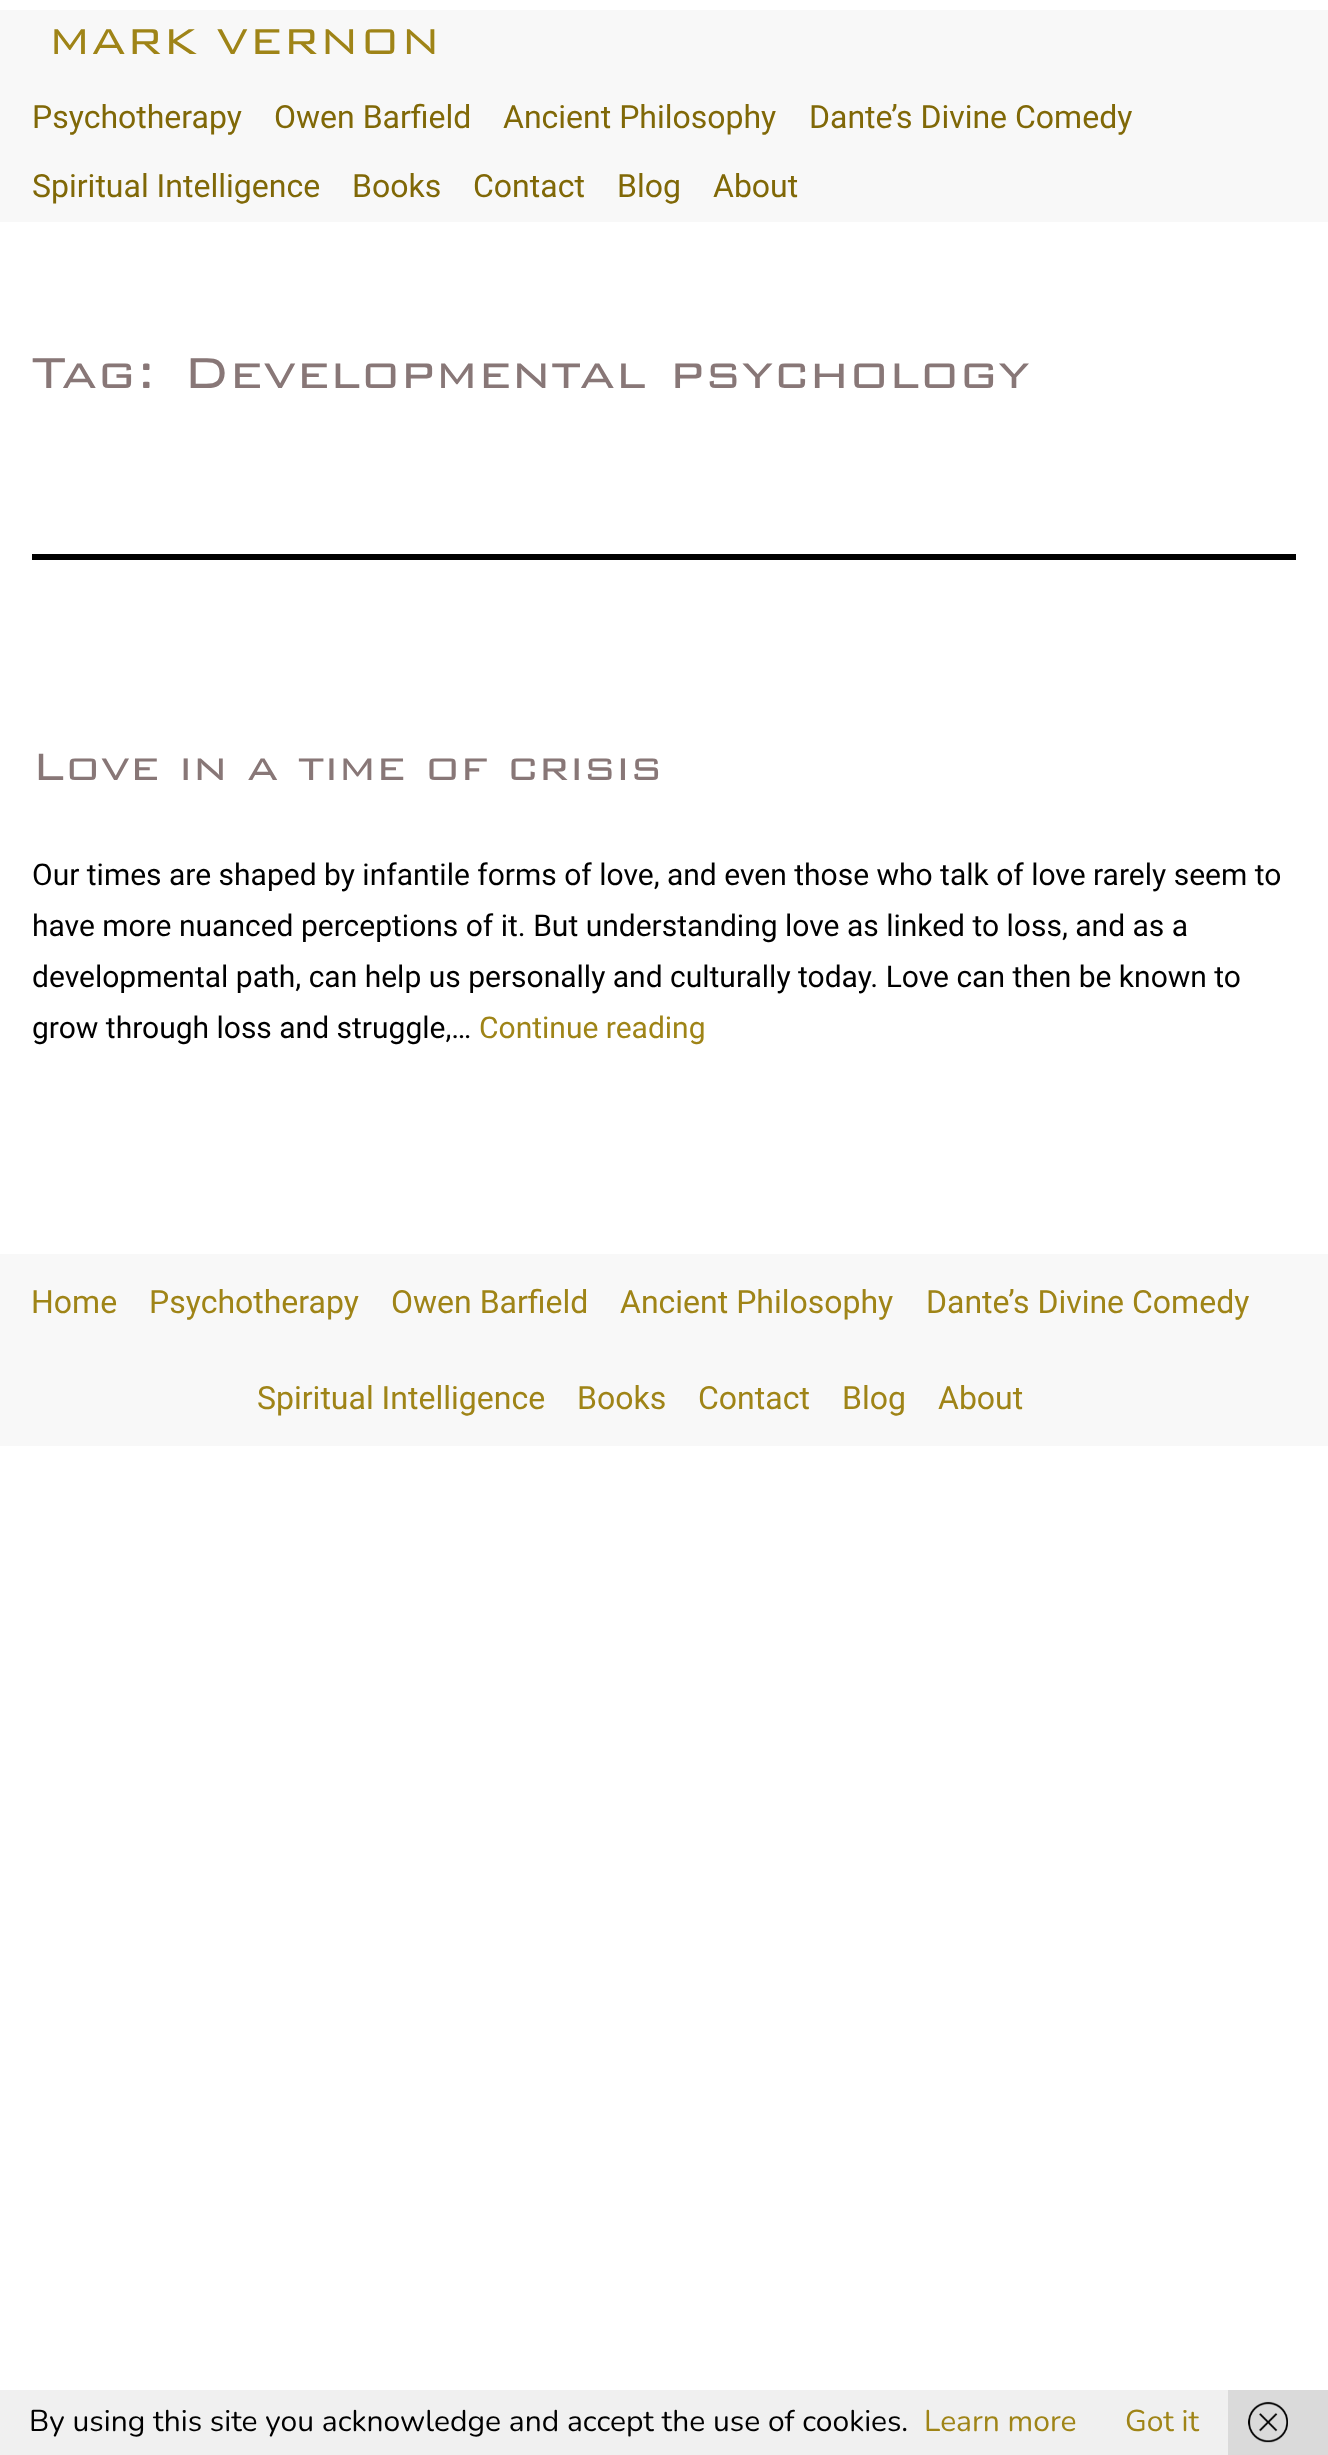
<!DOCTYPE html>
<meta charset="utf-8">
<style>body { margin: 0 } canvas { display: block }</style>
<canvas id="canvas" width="1328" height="2455"></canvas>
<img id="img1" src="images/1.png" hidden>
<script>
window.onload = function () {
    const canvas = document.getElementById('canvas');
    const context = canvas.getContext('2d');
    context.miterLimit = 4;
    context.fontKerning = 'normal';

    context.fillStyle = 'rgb(255, 255, 255)';
    context.fillRect(0, 0, 1328, 2455);
    context.fillStyle = 'rgb(248, 248, 248)';
    context.fillRect(0, 10, 1328, 212);
    context.fillStyle = 'rgb(0, 0, 0)';
    context.fillRect(32, 554, 1264, 6);
    context.fillStyle = 'rgb(248, 248, 248)';
    context.fillRect(0, 1254, 1328, 192);
    context.fillStyle = 'rgb(240, 240, 240)';
    context.fillRect(0, 2390, 1228, 65);
    context.fillStyle = 'rgb(218, 218, 218)';
    context.fillRect(1228, 2390, 100, 65);
    context.drawImage(document.getElementById('img1'), 1248, 2401, 40, 42);
    context.font = '300 48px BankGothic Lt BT';
    context.fillStyle = 'rgb(159, 132, 23)';
    context.fillText('MARK VERNON', 48, 54);
    context.font = '32px Roboto';
    context.fillStyle = 'rgb(128, 104, 7)';
    context.fillText('Psychotherapy', 32, 128);
    context.fillText('Owen Barfield', 274, 128);
    context.fillText('Ancient Philosophy', 503, 128);
    context.fillText('Dante’s Divine Comedy', 809, 128);
    context.fillText('Spiritual Intelligence', 32, 197);
    context.fillText('Books', 352, 197);
    context.fillText('Contact', 473, 197);
    context.fillText('Blog', 617, 197);
    context.fillText('About', 713, 197);
    context.font = '300 57.6px BankGothic Lt BT';
    context.fillStyle = 'rgb(136, 119, 119)';
    context.fillText('Tag:', 32, 388);
    context.wordSpacing = '2px';
    context.fillText('Developmental psychology', 183, 388);
    context.wordSpacing = '0px';
    context.font = '300 51px BankGothic Lt BT';
    context.fillText('Love in a time of crisis', 32, 780);
    context.font = '30px Roboto';
    context.fillStyle = 'rgb(0, 0, 0)';
    context.fillText('Our times are shaped by infantile forms of love, and even those who talk of love rarely seem to', 32, 885);
    context.fillText('have more nuanced perceptions of it. But understanding love as linked to loss, and as a', 32, 936);
    context.fillText('developmental path, can help us personally and culturally today. Love can then be known to', 32, 987);
    context.fillText('grow through loss and struggle,…', 32, 1038);
    context.fillStyle = 'rgb(159, 132, 23)';
    context.fillText('Continue reading', 479, 1038);
    context.font = '32px Roboto';
    context.fillText('Home', 31, 1313);
    context.fillText('Psychotherapy', 149, 1313);
    context.fillText('Owen Barfield', 391, 1313);
    context.fillText('Ancient Philosophy', 620, 1313);
    context.fillText('Dante’s Divine Comedy', 926, 1313);
    context.fillText('Spiritual Intelligence', 257, 1409);
    context.fillText('Books', 577, 1409);
    context.fillText('Contact', 698, 1409);
    context.fillText('Blog', 842, 1409);
    context.fillText('About', 938, 1409);
    context.font = '30px Nunito';
    context.fillStyle = 'rgb(0, 0, 0)';
    context.fillText('By using this site you acknowledge and accept the use of cookies.', 29, 2431);
    context.fillStyle = 'rgb(159, 132, 23)';
    context.fillText('Learn more', 924, 2431);
    context.fillText('Got it', 1125, 2431);
};
</script>
